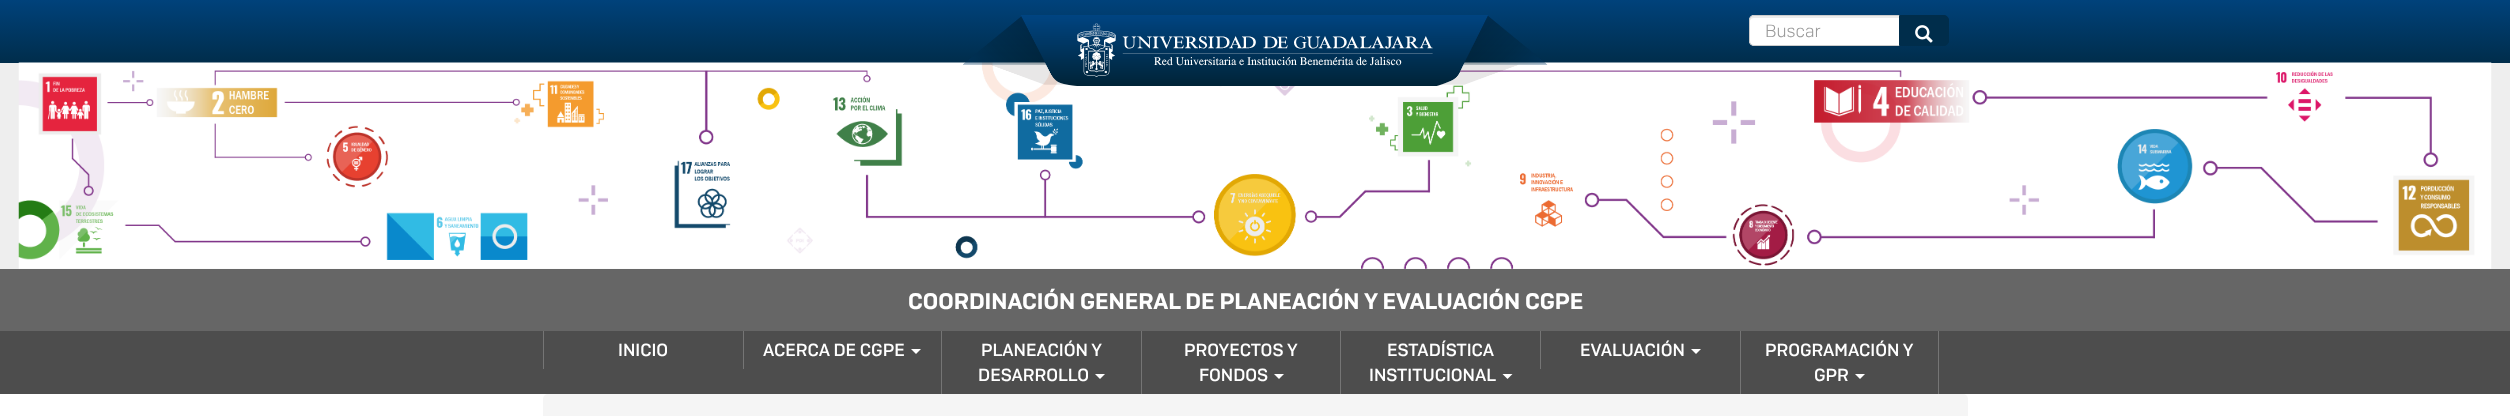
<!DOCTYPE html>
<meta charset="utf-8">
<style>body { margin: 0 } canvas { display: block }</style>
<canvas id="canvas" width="2510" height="416"></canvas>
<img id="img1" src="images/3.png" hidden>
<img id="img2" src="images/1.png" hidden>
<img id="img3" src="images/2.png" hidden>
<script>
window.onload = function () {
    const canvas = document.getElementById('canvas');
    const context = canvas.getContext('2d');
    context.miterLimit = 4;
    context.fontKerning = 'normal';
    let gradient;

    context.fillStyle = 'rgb(255, 255, 255)';
    context.fillRect(0, 0, 2510, 416);
    gradient = context.createLinearGradient(1255, 0, 1255, 63);
    gradient.addColorStop(0, 'rgb(0, 66, 123)');
    gradient.addColorStop(1, 'rgb(0, 45, 75)');
    context.fillStyle = gradient;
    context.fillRect(0, 0, 2510, 63);
    context.fillStyle = 'rgb(238, 238, 238)';
    context.fillRect(0, 63, 2510, 206);
    context.drawImage(document.getElementById('img1'), 18, 62, 2474, 207);
    context.drawImage(document.getElementById('img2'), 963, 15, 585, 71);
    context.fillStyle = 'rgb(255, 255, 255)';
    context.beginPath();
    context.roundRect(1749, 15, 151, 31, [5, 0, 0, 5]);
    context.fill();
    context.fillStyle = 'rgb(236, 236, 236)';
    context.beginPath();
    context.moveTo(1754, 18);
    context.lineTo(1899, 18);
    context.lineTo(1899, 16);
    context.lineTo(1754, 16);
    context.bezierCurveTo(1751, 16, 1750, 18, 1750, 21);
    context.bezierCurveTo(1750, 19, 1752, 18, 1754, 18);
    context.closePath();
    context.fill();
    context.beginPath();
    context.roundRect(1749.5, 15.5, 150, 30, [4.5, 0, 0, 4.5]);
    context.strokeStyle = 'rgb(204, 204, 204)';
    context.stroke();
    context.fillStyle = 'rgb(0, 45, 75)';
    context.beginPath();
    context.roundRect(1899.5, 15.5, 49, 30, [0, 4.5, 4.5, 0]);
    context.fill();
    context.strokeStyle = 'rgb(0, 45, 75)';
    context.stroke();
    context.drawImage(document.getElementById('img3'), 1915, 25, 18, 18);
    context.fillStyle = 'rgb(102, 102, 102)';
    context.fillRect(0, 269, 2510, 62);
    context.fillStyle = 'rgb(77, 77, 77)';
    context.fillRect(0, 331, 2510, 63);
    context.fillStyle = 'rgb(117, 117, 117)';
    context.fillRect(543, 331, 1, 38);
    context.fillRect(743, 331, 1, 38);
    context.fillStyle = 'rgb(255, 255, 255)';
    context.beginPath();
    context.moveTo(911, 349);
    context.lineTo(921, 349);
    context.lineTo(916, 354);
    context.closePath();
    context.fill();
    context.fillStyle = 'rgb(117, 117, 117)';
    context.fillRect(941, 331, 1, 63);
    context.fillStyle = 'rgb(255, 255, 255)';
    context.beginPath();
    context.moveTo(1095, 374);
    context.lineTo(1105, 374);
    context.lineTo(1100, 379);
    context.closePath();
    context.fill();
    context.fillStyle = 'rgb(117, 117, 117)';
    context.fillRect(1141, 331, 1, 63);
    context.fillStyle = 'rgb(255, 255, 255)';
    context.beginPath();
    context.moveTo(1274, 374);
    context.lineTo(1284, 374);
    context.lineTo(1279, 379);
    context.closePath();
    context.fill();
    context.fillStyle = 'rgb(117, 117, 117)';
    context.fillRect(1340, 331, 1, 63);
    context.fillStyle = 'rgb(255, 255, 255)';
    context.beginPath();
    context.moveTo(1502.5, 374);
    context.lineTo(1512.5, 374);
    context.lineTo(1507.5, 379);
    context.closePath();
    context.fill();
    context.fillStyle = 'rgb(117, 117, 117)';
    context.fillRect(1540, 331, 1, 38);
    context.fillStyle = 'rgb(255, 255, 255)';
    context.beginPath();
    context.moveTo(1691, 349);
    context.lineTo(1701, 349);
    context.lineTo(1696, 354);
    context.closePath();
    context.fill();
    context.fillStyle = 'rgb(117, 117, 117)';
    context.fillRect(1938, 331, 1, 63);
    context.fillRect(1740, 331, 1, 63);
    context.fillStyle = 'rgb(255, 255, 255)';
    context.beginPath();
    context.moveTo(1855, 374);
    context.lineTo(1865, 374);
    context.lineTo(1860, 379);
    context.closePath();
    context.fill();
    context.fillStyle = 'rgb(245, 245, 245)';
    context.beginPath();
    context.roundRect(543, 394, 1425, 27, 5);
    context.fill();
    context.font = '300 17.5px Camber';
    context.fillStyle = 'rgb(153, 153, 153)';
    context.fillText('Buscar', 1765, 37);
    context.font = '600 22.5px Camber';
    context.fillStyle = 'rgb(255, 255, 255)';
    context.fillText('COORDINACIÓN GENERAL DE PLANEACIÓN Y EVALUACIÓN CGPE', 908, 309);
    context.font = '500 17.5px Camber';
    context.fillText('INICIO', 618, 356);
    context.fillText('ACERCA DE CGPE', 763, 356);
    context.fillText('PLANEACIÓN Y', 981, 356);
    context.fillText('DESARROLLO', 978, 381);
    context.fillText('PROYECTOS Y', 1184, 356);
    context.fillText('FONDOS', 1199, 381);
    context.fillText('ESTADÍSTICA', 1387, 356);
    context.fillText('INSTITUCIONAL', 1369, 381);
    context.fillText('EVALUACIÓN', 1580, 356);
    context.fillText('PROGRAMACIÓN Y', 1765, 356);
    context.fillText('GPR', 1814, 381);
};
</script>
